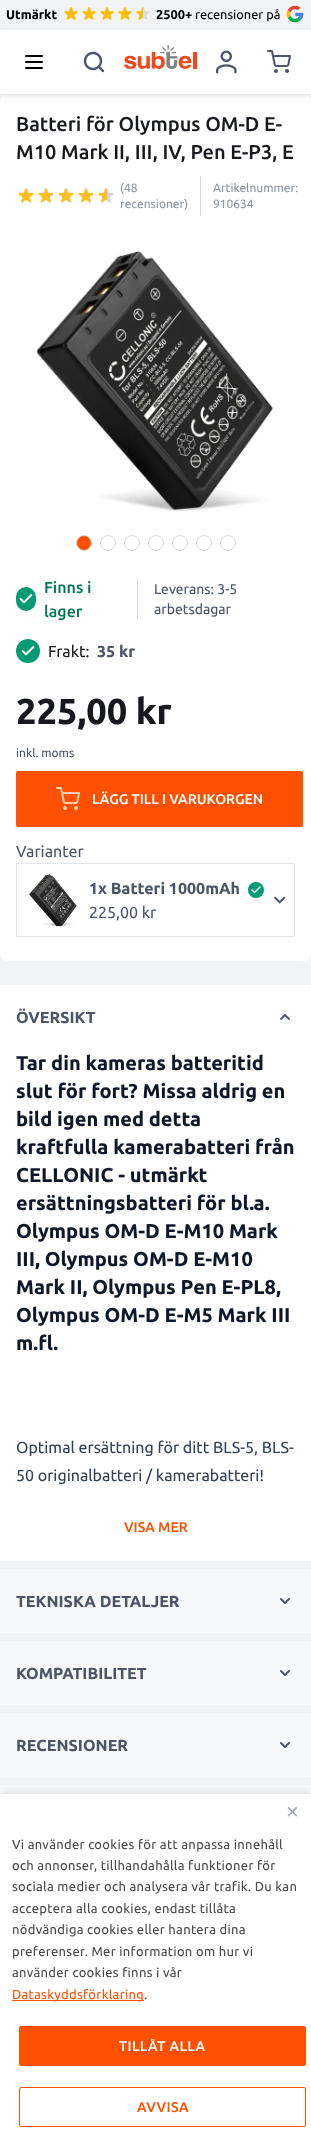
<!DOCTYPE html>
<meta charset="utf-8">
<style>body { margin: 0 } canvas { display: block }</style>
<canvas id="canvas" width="311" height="2146"></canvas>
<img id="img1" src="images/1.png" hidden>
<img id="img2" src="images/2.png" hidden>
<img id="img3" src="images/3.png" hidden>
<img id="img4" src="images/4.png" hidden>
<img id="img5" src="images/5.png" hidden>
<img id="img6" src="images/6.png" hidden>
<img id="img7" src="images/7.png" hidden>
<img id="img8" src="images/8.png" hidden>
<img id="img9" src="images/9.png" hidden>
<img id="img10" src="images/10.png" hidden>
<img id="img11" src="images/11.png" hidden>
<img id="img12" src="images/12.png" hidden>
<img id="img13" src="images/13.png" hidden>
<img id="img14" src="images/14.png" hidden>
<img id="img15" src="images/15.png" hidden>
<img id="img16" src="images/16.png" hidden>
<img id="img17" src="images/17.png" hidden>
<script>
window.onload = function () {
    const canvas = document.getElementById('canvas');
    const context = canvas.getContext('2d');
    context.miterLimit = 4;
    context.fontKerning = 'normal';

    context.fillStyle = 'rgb(241, 243, 245)';
    context.fillRect(0, 0, 311, 2146);
    context.drawImage(document.getElementById('img1'), 64, 7, 14, 13);
    context.drawImage(document.getElementById('img1'), 82, 7, 14, 13);
    context.drawImage(document.getElementById('img1'), 100, 7, 14, 13);
    context.drawImage(document.getElementById('img1'), 118, 7, 14, 13);
    context.drawImage(document.getElementById('img2'), 136, 7, 14, 13);
    context.drawImage(document.getElementById('img3'), 286, 5, 18, 18);
    context.fillStyle = 'rgb(255, 255, 255)';
    context.beginPath();
    context.roundRect(0, 94, 311, 867, 8);
    context.fill();
    context.fillStyle = 'rgba(16, 24, 40, 0.1)';
    context.filter = 'blur(4px)';
    context.beginPath();
    context.rect(2, 36, 307, 60);
    context.fill();
    context.filter = 'none';
    context.fillStyle = 'rgba(16, 24, 40, 0.06)';
    context.filter = 'blur(2px)';
    context.beginPath();
    context.rect(2, 34, 307, 60);
    context.fill();
    context.filter = 'none';
    context.fillStyle = 'rgb(255, 255, 255)';
    context.fillRect(0, 30, 311, 64);
    context.beginPath();
    context.moveTo(26, 56);
    context.lineTo(42, 56);
    context.moveTo(26, 62);
    context.lineTo(42, 62);
    context.moveTo(26, 68);
    context.lineTo(42, 68);
    context.strokeStyle = 'rgb(0, 0, 0)';
    context.lineWidth = 2;
    context.lineCap = 'round';
    context.lineJoin = 'round';
    context.stroke();
    context.drawImage(document.getElementById('img4'), 83, 51, 22, 22);
    context.drawImage(document.getElementById('img5'), 124, 45, 73, 24);
    context.drawImage(document.getElementById('img6'), 216, 50, 21, 24);
    context.drawImage(document.getElementById('img7'), 267, 50, 24, 23);
    context.drawImage(document.getElementById('img8'), 18, 188, 16, 15);
    context.drawImage(document.getElementById('img8'), 38, 188, 16, 15);
    context.drawImage(document.getElementById('img8'), 58, 188, 16, 15);
    context.drawImage(document.getElementById('img8'), 78, 188, 16, 15);
    context.drawImage(document.getElementById('img9'), 98, 188, 16, 15);
    context.fillStyle = 'rgb(211, 215, 223)';
    context.fillRect(200, 176, 1, 40);
    context.drawImage(document.getElementById('img10'), 36, 251, 237, 261);
    context.fillStyle = 'rgb(255, 80, 0)';
    context.beginPath();
    context.arc(84, 543, 7.5, 0, 2 * Math.PI);
    context.fill();
    context.strokeStyle = 'rgb(211, 215, 223)';
    context.lineWidth = 1;
    context.stroke();
    context.beginPath();
    context.arc(108, 543, 7.5, 0, 2 * Math.PI);
    context.stroke();
    context.beginPath();
    context.arc(132, 543, 7.5, 0, 2 * Math.PI);
    context.stroke();
    context.beginPath();
    context.arc(156, 543, 7.5, 0, 2 * Math.PI);
    context.stroke();
    context.beginPath();
    context.arc(180, 543, 7.5, 0, 2 * Math.PI);
    context.stroke();
    context.beginPath();
    context.arc(204, 543, 7.5, 0, 2 * Math.PI);
    context.stroke();
    context.beginPath();
    context.arc(228, 543, 7.5, 0, 2 * Math.PI);
    context.stroke();
    context.fillStyle = 'rgb(4, 154, 114)';
    context.beginPath();
    context.roundRect(16, 587, 20, 24, 10);
    context.fill();
    context.drawImage(document.getElementById('img11'), 19, 594, 14, 10);
    context.fillStyle = 'rgb(211, 215, 223)';
    context.fillRect(137, 579, 1, 40);
    context.fillStyle = 'rgb(4, 154, 114)';
    context.beginPath();
    context.arc(28, 651, 12, 0, 2 * Math.PI);
    context.fill();
    context.drawImage(document.getElementById('img11'), 21, 646, 14, 10);
    context.fillStyle = 'rgb(255, 80, 0)';
    context.beginPath();
    context.roundRect(16, 771, 287, 56, 2);
    context.fill();
    context.drawImage(document.getElementById('img12'), 56, 787, 24, 23);
    context.strokeStyle = 'rgb(228, 231, 236)';
    context.lineJoin = 'miter';
    context.strokeRect(16.5, 863.5, 278, 73);
    context.drawImage(document.getElementById('img13'), 27, 874, 50, 54);
    context.fillStyle = 'rgb(4, 154, 114)';
    context.beginPath();
    context.arc(256, 890, 8, 0, 2 * Math.PI);
    context.fill();
    context.drawImage(document.getElementById('img14'), 251, 886, 10, 8);
    context.drawImage(document.getElementById('img15'), 274, 896, 12, 8);
    context.fillStyle = 'rgb(255, 255, 255)';
    context.fillRect(0, 985, 311, 576);
    context.drawImage(document.getElementById('img16'), 280, 1014, 10, 6);
    context.fillStyle = 'rgb(247, 248, 249)';
    context.fillRect(0, 1569, 311, 64);
    context.drawImage(document.getElementById('img17'), 280, 1598, 10, 6);
    context.fillRect(0, 1641, 311, 64);
    context.drawImage(document.getElementById('img17'), 280, 1670, 10, 6);
    context.fillRect(0, 1713, 311, 64);
    context.drawImage(document.getElementById('img17'), 280, 1742, 10, 6);
    context.fillRect(0, 1785, 311, 9);
    context.fillStyle = 'rgba(0, 0, 0, 0.1)';
    context.filter = 'blur(5px)';
    context.beginPath();
    context.rect(0, 1792, 311, 352);
    context.fill();
    context.filter = 'none';
    context.fillStyle = 'rgb(255, 255, 255)';
    context.fillRect(0, 1794, 311, 352);
    context.fillStyle = 'rgb(255, 80, 0)';
    context.fillRect(12, 2000, 132, 1);
    context.beginPath();
    context.roundRect(19.5, 2026.5, 286, 39, 1.5);
    context.fill();
    context.strokeStyle = 'rgb(255, 80, 0)';
    context.stroke();
    context.beginPath();
    context.roundRect(19.5, 2087.5, 286, 39, 1.5);
    context.stroke();
    context.font = 'bold 12.75px Ubuntu';
    context.fillStyle = 'rgb(0, 0, 0)';
    context.fillText('Utmärkt', 6, 19);
    context.fillText('2500+', 156, 19);
    context.font = '12.75px Ubuntu';
    context.fillText('recensioner på', 195, 19);
    context.font = '500 20px Ubuntu';
    context.fillStyle = 'rgb(22, 24, 29)';
    context.fillText('Batteri för Olympus OM-D E-', 16, 131);
    context.fillText('M10 Mark II, III, IV, Pen E-P3, E', 16, 159);
    context.font = '12px Ubuntu';
    context.fillStyle = 'rgb(138, 150, 168)';
    context.fillText('(48', 120, 192);
    context.fillText('recensioner)', 120, 208);
    context.fillText('Artikelnummer:', 213, 192);
    context.fillText('910634', 213, 208);
    context.font = '500 16px Ubuntu';
    context.fillStyle = 'rgb(2, 120, 89)';
    context.fillText('Finns i', 44, 593);
    context.fillText('lager', 44, 617);
    context.font = '14px Ubuntu';
    context.fillStyle = 'rgb(76, 85, 103)';
    context.fillText('Leverans: 3-5', 154, 594);
    context.fillText('arbetsdagar', 154, 614);
    context.font = '16px Ubuntu';
    context.fillStyle = 'rgb(22, 24, 29)';
    context.fillText('Frakt:', 48, 657);
    context.font = 'bold 16px Ubuntu';
    context.fillStyle = 'rgb(76, 85, 103)';
    context.fillText('35 kr', 97, 657);
    context.font = 'bold 36px Ubuntu';
    context.fillStyle = 'rgb(22, 24, 29)';
    context.fillText('225,00 kr', 16, 724);
    context.font = '12px Ubuntu';
    context.fillStyle = 'rgb(76, 85, 103)';
    context.fillText('inkl. moms', 16, 757);
    context.font = '500 14px Ubuntu';
    context.fillStyle = 'rgb(255, 255, 255)';
    context.fillText('LÄGG TILL I VARUKORGEN', 92, 804);
    context.font = '16px Ubuntu';
    context.fillStyle = 'rgb(76, 85, 103)';
    context.fillText('Varianter', 16, 857);
    context.font = 'bold 16px Ubuntu';
    context.fillText('1x Batteri 1000mAh', 89, 894);
    context.font = '16px Ubuntu';
    context.fillText('225,00 kr', 89, 918);
    context.font = 'bold 16px Ubuntu';
    context.fillText('ÖVERSIKT', 16, 1023);
    context.font = 'bold 20px Ubuntu';
    context.fillStyle = 'rgb(15, 23, 42)';
    context.fillText('Tar din kameras batteritid', 16, 1070);
    context.fillText('slut för fort? Missa aldrig en', 16, 1098);
    context.fillText('bild igen med detta', 16, 1126);
    context.fillText('kraftfulla kamerabatteri från', 16, 1154);
    context.fillText('CELLONIC - utmärkt', 16, 1182);
    context.fillText('ersättningsbatteri för bl.a.', 16, 1210);
    context.fillText('Olympus OM-D E-M10 Mark', 16, 1238);
    context.fillText('III, Olympus OM-D E-M10', 16, 1266);
    context.fillText('Mark II, Olympus Pen E-PL8,', 16, 1294);
    context.fillText('Olympus OM-D E-M5 Mark III', 16, 1322);
    context.fillText('m.fl.', 16, 1350);
    context.font = '16px Ubuntu';
    context.fillStyle = 'rgb(51, 65, 85)';
    context.fillText('Optimal ersättning för ditt BLS-5, BLS-', 16, 1453);
    context.fillText('50 originalbatteri / kamerabatteri!', 16, 1481);
    context.font = '500 14px Ubuntu';
    context.fillStyle = 'rgb(255, 80, 0)';
    context.fillText('VISA MER', 124, 1532);
    context.font = 'bold 16px Ubuntu';
    context.fillStyle = 'rgb(76, 85, 103)';
    context.fillText('TEKNISKA DETALJER', 16, 1607);
    context.fillText('KOMPATIBILITET', 16, 1679);
    context.fillText('RECENSIONER', 16, 1751);
    context.font = '22px Liberation Sans';
    context.fillStyle = 'rgb(156, 166, 181)';
    context.fillText('×', 286, 1819);
    context.letterSpacing = '0.3px';
    context.font = '13px Ubuntu';
    context.fillStyle = 'rgb(74, 74, 74)';
    context.fillText('Vi använder cookies för att anpassa innehåll', 12, 1849);
    context.fillText('och annonser, tillhandahålla funktioner för', 12, 1870);
    context.fillText('sociala medier och analysera vår trafik. Du kan', 12, 1891);
    context.fillText('acceptera alla cookies, endast tillåta', 12, 1913);
    context.fillText('nödvändiga cookies eller hantera dina', 12, 1934);
    context.fillText('preferenser. Mer information om hur vi', 12, 1956);
    context.fillText('använder cookies finns i vår', 12, 1977);
    context.fillStyle = 'rgb(255, 80, 0)';
    context.fillText('Dataskyddsförklaring', 12, 1999);
    context.fillStyle = 'rgb(74, 74, 74)';
    context.fillText('.', 144, 1999);
    context.letterSpacing = '0.4px';
    context.font = '500 14px Ubuntu';
    context.fillStyle = 'rgb(255, 255, 255)';
    context.fillText('TILLÅT ALLA', 119, 2051);
    context.fillStyle = 'rgb(255, 80, 0)';
    context.fillText('AVVISA', 137, 2112);
};
</script>
